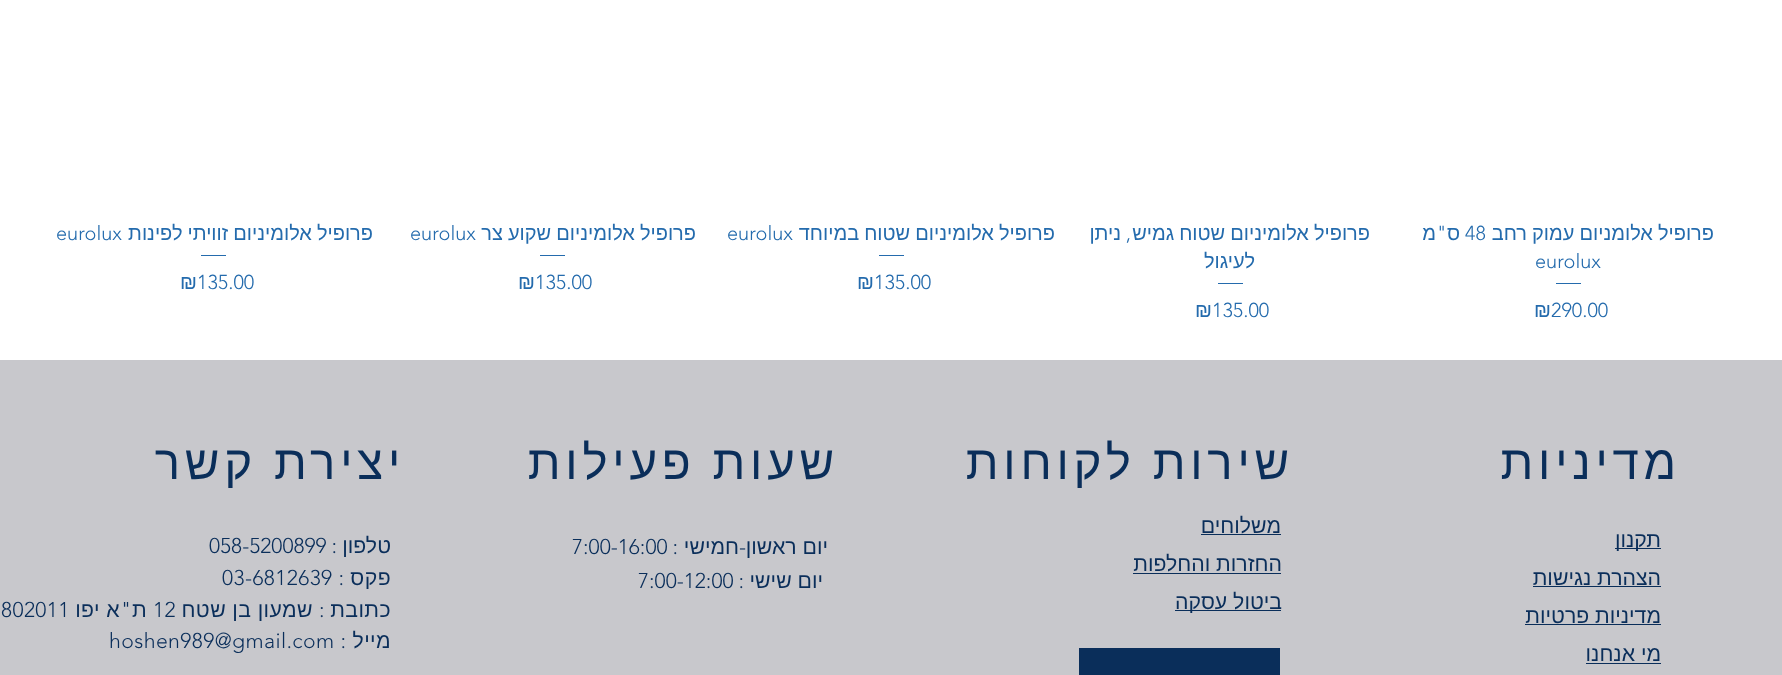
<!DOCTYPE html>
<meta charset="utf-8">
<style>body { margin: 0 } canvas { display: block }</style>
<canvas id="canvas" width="1782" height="675"></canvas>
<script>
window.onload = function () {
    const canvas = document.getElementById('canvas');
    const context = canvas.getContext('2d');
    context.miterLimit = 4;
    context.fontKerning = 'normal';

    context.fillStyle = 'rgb(255, 255, 255)';
    context.fillRect(0, 0, 1782, 675);
    context.fillStyle = 'rgb(36, 107, 173)';
    context.fillRect(1556, 283, 25, 1);
    context.fillRect(1218, 283, 25, 1);
    context.fillRect(879, 255, 25, 1);
    context.fillRect(540, 255, 25, 1);
    context.fillRect(201, 255, 25, 1);
    context.fillStyle = 'rgb(200, 200, 204)';
    context.fillRect(0, 360, 1782, 315);
    context.fillStyle = 'rgb(10, 46, 90)';
    context.fillRect(1615, 548, 46, 1);
    context.fillRect(1533, 586, 128, 1);
    context.fillRect(1525, 624, 136, 1);
    context.fillRect(1586, 663, 75, 1);
    context.fillRect(1201, 534, 80, 1);
    context.fillRect(1133, 573, 148, 1);
    context.fillRect(1175, 610, 106, 1);
    context.fillRect(1079, 648, 201, 27);
    context.wordSpacing = '-0.5px';
    context.direction = 'rtl';
    context.font = '20px Liberation Sans';
    context.fillStyle = 'rgb(36, 107, 173)';
    context.fillText('פרופיל אלומניום עמוק רחב', 1714, 240);
    context.wordSpacing = '0px';
    context.direction = 'ltr';
    context.font = '300 20px "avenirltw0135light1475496"';
    context.fillText('48', 1465, 240);
    context.direction = 'rtl';
    context.font = '20px Liberation Sans';
    context.fillText('ס', 1460, 240);
    context.font = '300 20px "avenirltw0135light1475496"';
    context.fillText('"', 1447, 240);
    context.font = '20px Liberation Sans';
    context.fillText('מ', 1436, 240);
    context.direction = 'ltr';
    context.font = '300 20px "avenirltw0135light1475496"';
    context.fillText('eurolux', 1535, 268);
    context.fillText('290.00', 1551, 317);
    context.font = '20px Liberation Sans';
    context.fillText('₪', 1534, 317);
    context.wordSpacing = '-0.5px';
    context.direction = 'rtl';
    context.fillText('פרופיל אלומיניום שטוח גמיש', 1370, 240);
    context.wordSpacing = '0px';
    context.font = '300 20px "avenirltw0135light1475496"';
    context.fillText(',', 1131, 240);
    context.font = '20px Liberation Sans';
    context.fillText('ניתן', 1121, 240);
    context.fillText('לעיגול', 1255, 268);
    context.direction = 'ltr';
    context.font = '300 20px "avenirltw0135light1475496"';
    context.fillText('135.00', 1212, 317);
    context.font = '20px Liberation Sans';
    context.fillText('₪', 1195, 317);
    context.wordSpacing = '-0.5px';
    context.direction = 'rtl';
    context.fillText('פרופיל אלומיניום שטוח במיוחד', 1055, 240);
    context.wordSpacing = '0px';
    context.direction = 'ltr';
    context.font = '300 20px "avenirltw0135light1475496"';
    context.fillText('eurolux', 727, 240);
    context.fillText('135.00', 874, 289);
    context.font = '20px Liberation Sans';
    context.fillText('₪', 857, 289);
    context.wordSpacing = '-0.5px';
    context.direction = 'rtl';
    context.fillText('פרופיל אלומיניום שקוע צר', 696, 240);
    context.wordSpacing = '0px';
    context.direction = 'ltr';
    context.font = '300 20px "avenirltw0135light1475496"';
    context.fillText('eurolux', 410, 240);
    context.fillText('135.00', 535, 289);
    context.font = '20px Liberation Sans';
    context.fillText('₪', 518, 289);
    context.wordSpacing = '-0.5px';
    context.direction = 'rtl';
    context.fillText('פרופיל אלומיניום זוויתי לפינות', 373, 240);
    context.wordSpacing = '0px';
    context.direction = 'ltr';
    context.font = '300 20px "avenirltw0135light1475496"';
    context.fillText('eurolux', 56, 240);
    context.fillText('135.00', 197, 289);
    context.font = '20px Liberation Sans';
    context.fillText('₪', 180, 289);
    context.letterSpacing = '4.75px';
    context.direction = 'rtl';
    context.font = '47.5px Liberation Sans';
    context.fillStyle = 'rgb(10, 46, 90)';
    context.fillText('מדיניות', 1681, 479);
    context.letterSpacing = '0px';
    context.font = '21.25px Liberation Sans';
    context.fillText('תקנון', 1661, 547);
    context.fillText('הצהרת נגישות', 1661, 585);
    context.fillText('מדיניות פרטיות', 1661, 623);
    context.fillText('מי אנחנו', 1661, 661);
    context.letterSpacing = '4.75px';
    context.wordSpacing = '-1px';
    context.font = '47.5px Liberation Sans';
    context.fillText('שירות לקוחות', 1294, 479);
    context.letterSpacing = '0px';
    context.wordSpacing = '0px';
    context.font = '21.25px Liberation Sans';
    context.fillText('משלוחים', 1281, 533);
    context.fillText('החזרות והחלפות', 1282, 571);
    context.fillText('ביטול עסקה', 1282, 609);
    context.letterSpacing = '4.75px';
    context.wordSpacing = '-1px';
    context.font = '47.5px Liberation Sans';
    context.fillText('שעות פעילות', 839, 479);
    context.letterSpacing = '0px';
    context.wordSpacing = '0px';
    context.font = '21.25px Liberation Sans';
    context.fillText('יום ראשון', 828, 554);
    context.font = '300 21.25px "avenirltw0135light1475496"';
    context.fillText('-', 746, 554);
    context.font = '21.25px Liberation Sans';
    context.fillText('חמישי', 739, 554);
    context.font = '300 21.25px "avenirltw0135light1475496"';
    context.fillText(':', 678, 554);
    context.direction = 'ltr';
    context.fillText('7:00-16:00', 572, 554);
    context.direction = 'rtl';
    context.font = '21.25px Liberation Sans';
    context.fillText('יום שישי', 823, 588);
    context.font = '300 21.25px "avenirltw0135light1475496"';
    context.fillText(':', 744, 588);
    context.direction = 'ltr';
    context.fillText('7:00-12:00', 638, 588);
    context.letterSpacing = '4.75px';
    context.wordSpacing = '-1px';
    context.direction = 'rtl';
    context.font = '47.5px Liberation Sans';
    context.fillText('יצירת קשר', 405, 479);
    context.letterSpacing = '0px';
    context.wordSpacing = '0px';
    context.font = '21.25px Liberation Sans';
    context.fillText('טלפון', 391, 553);
    context.font = '300 21.25px "avenirltw0135light1475496"';
    context.fillText(':', 337, 553);
    context.direction = 'ltr';
    context.fillText('058-5200899', 209, 553);
    context.letterSpacing = '0.4px';
    context.direction = 'rtl';
    context.font = '21.25px Liberation Sans';
    context.fillText('פקס', 391, 585);
    context.direction = 'ltr';
    context.font = '300 21.25px "avenirltw0135light1475496"';
    context.fillText('03-6812639 :', 222, 585);
    context.direction = 'rtl';
    context.font = '21.25px Liberation Sans';
    context.fillText('כתובת', 391, 617);
    context.font = '300 21.25px "avenirltw0135light1475496"';
    context.fillText(':', 325, 617);
    context.font = '21.25px Liberation Sans';
    context.fillText('שמעון בן שטח', 313, 617);
    context.direction = 'ltr';
    context.font = '300 21.25px "avenirltw0135light1475496"';
    context.fillText('12', 153, 617);
    context.direction = 'rtl';
    context.font = '21.25px Liberation Sans';
    context.fillText('ת', 147, 617);
    context.font = '300 21.25px "avenirltw0135light1475496"';
    context.fillText('"', 132, 617);
    context.font = '21.25px Liberation Sans';
    context.fillText('א יפו', 120, 617);
    context.direction = 'ltr';
    context.font = '300 21.25px "avenirltw0135light1475496"';
    context.fillText('802011', 1, 617);
    context.direction = 'rtl';
    context.font = '21.25px Liberation Sans';
    context.fillText('מייל', 391, 648);
    context.direction = 'ltr';
    context.font = '300 21.25px "avenirltw0135light1475496"';
    context.fillText('hoshen989@gmail.com :', 109, 648);
};
</script>
